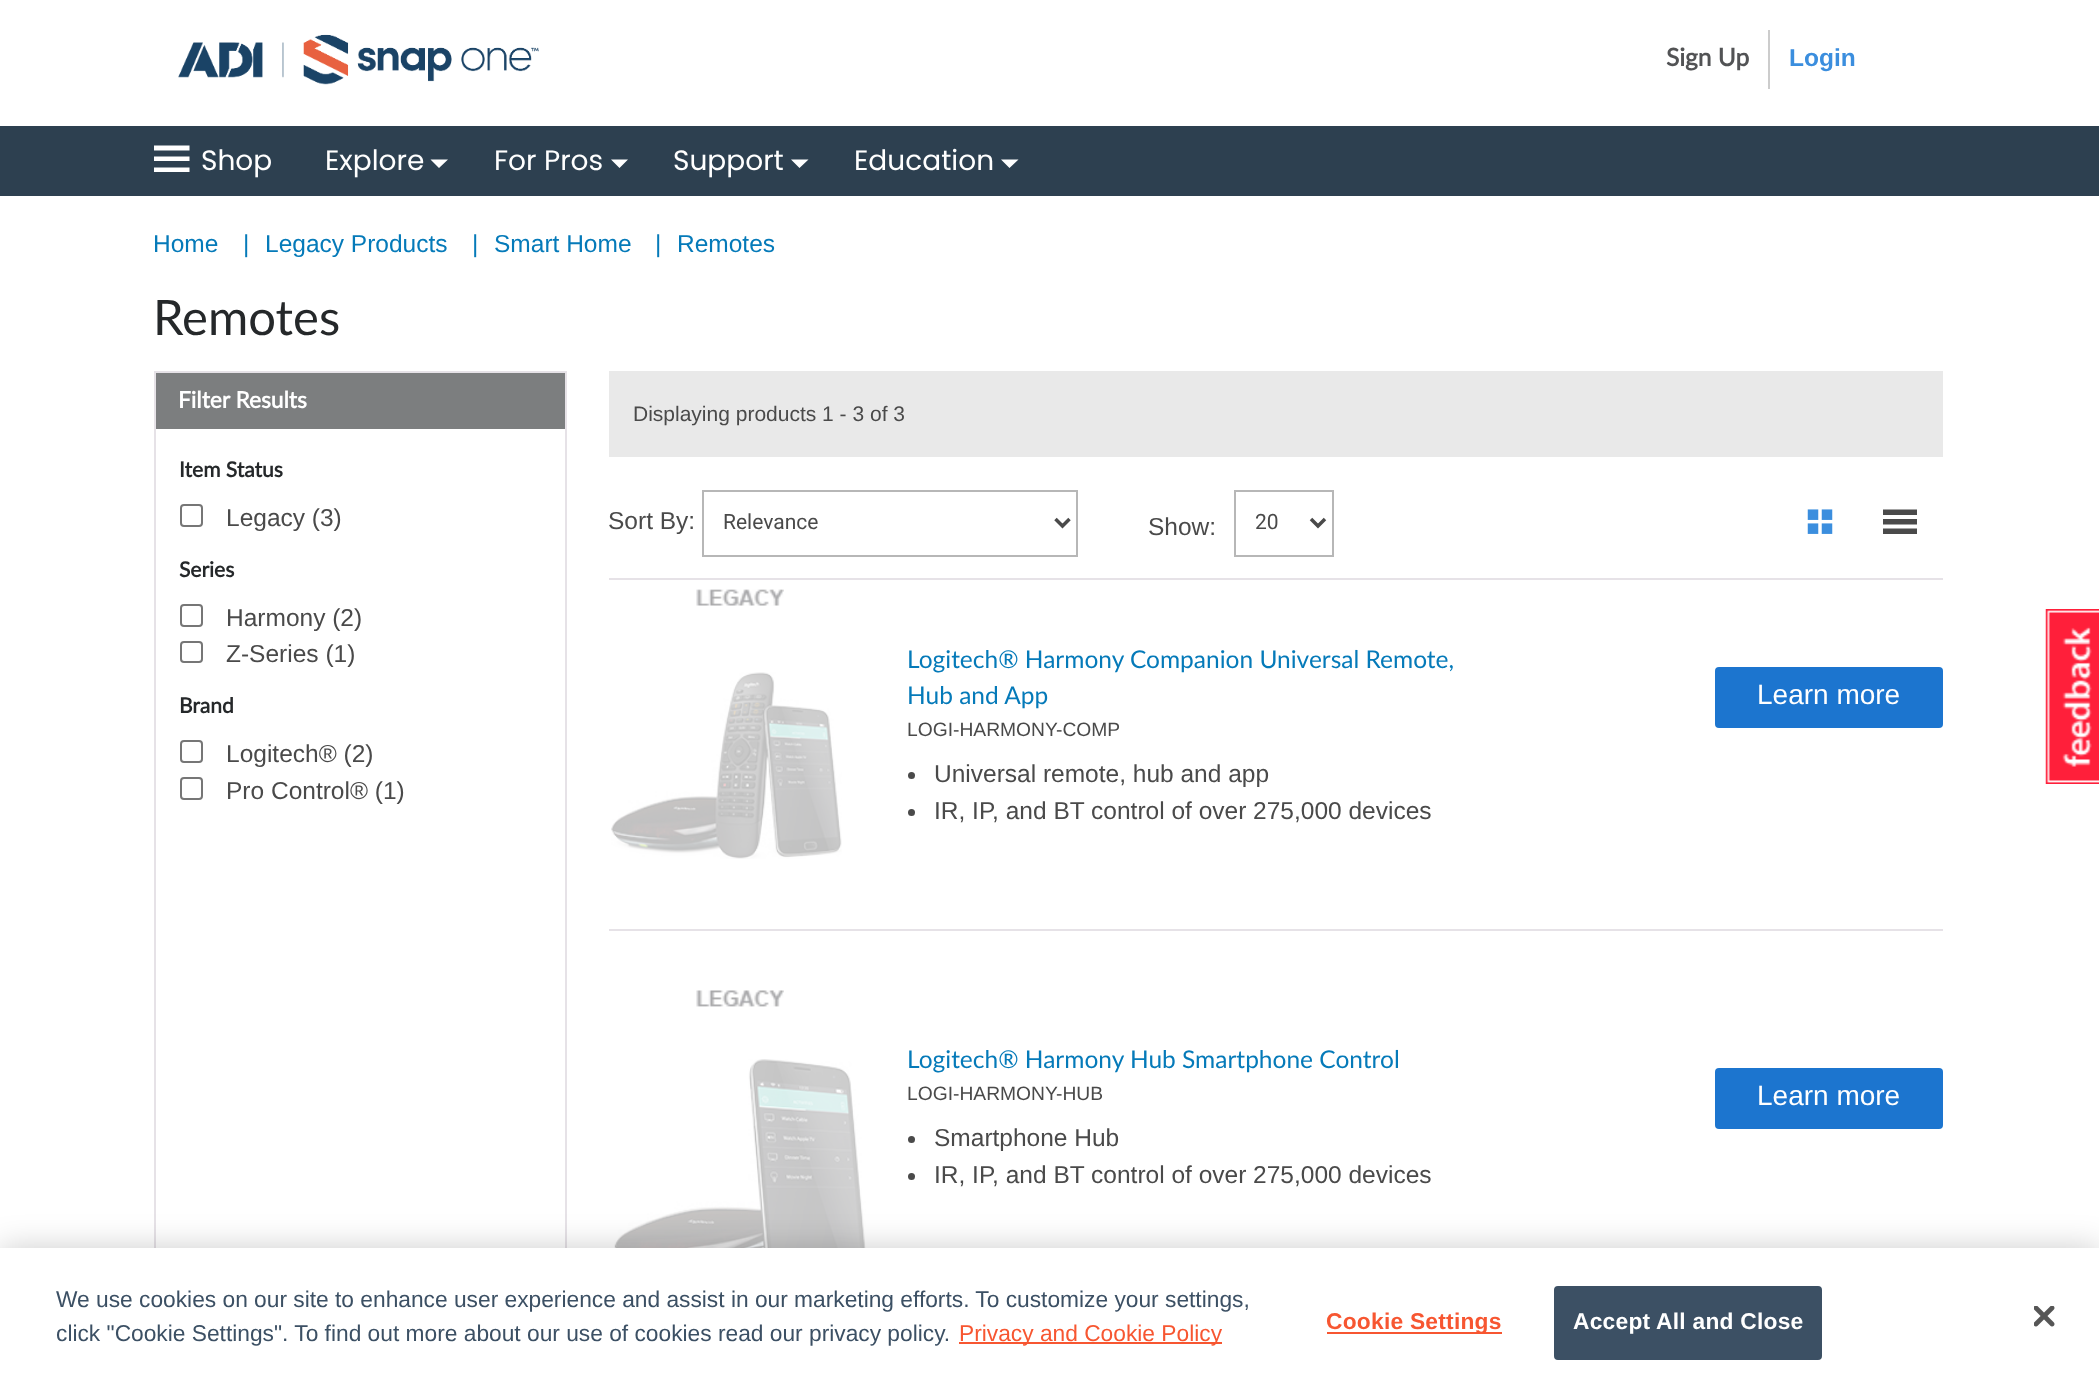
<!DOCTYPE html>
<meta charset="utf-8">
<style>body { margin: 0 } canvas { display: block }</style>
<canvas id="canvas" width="2099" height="1391"></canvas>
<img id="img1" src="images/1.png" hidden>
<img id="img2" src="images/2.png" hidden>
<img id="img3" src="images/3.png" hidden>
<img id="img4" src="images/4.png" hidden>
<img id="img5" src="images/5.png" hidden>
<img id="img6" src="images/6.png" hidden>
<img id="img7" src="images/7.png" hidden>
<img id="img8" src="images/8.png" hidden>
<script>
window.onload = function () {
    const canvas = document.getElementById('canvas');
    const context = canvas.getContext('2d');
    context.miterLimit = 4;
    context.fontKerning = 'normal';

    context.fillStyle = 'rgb(255, 255, 255)';
    context.fillRect(0, 0, 2099, 1391);
    context.drawImage(document.getElementById('img1'), 178, 34, 361, 51);
    context.fillStyle = 'rgb(204, 204, 204)';
    context.fillRect(1768, 30, 2, 59);
    context.fillStyle = 'rgb(45, 64, 80)';
    context.fillRect(0, 126, 2099, 70);
    context.fillStyle = 'rgb(255, 255, 255)';
    context.beginPath();
    context.moveTo(189.5, 150.5);
    context.lineTo(154, 150.5);
    context.lineTo(154, 145.5);
    context.lineTo(189.5, 145.5);
    context.closePath();
    context.moveTo(189.5, 167.5);
    context.lineTo(154, 167.5);
    context.lineTo(154, 172);
    context.lineTo(189.5, 172);
    context.closePath();
    context.moveTo(189.5, 156.5);
    context.lineTo(154, 156.5);
    context.lineTo(154, 161);
    context.lineTo(189.5, 161);
    context.closePath();
    context.fill();
    context.beginPath();
    context.moveTo(430.5, 159.5);
    context.lineTo(439, 168);
    context.lineTo(448, 159.5);
    context.closePath();
    context.moveTo(448, 159.5);
    context.lineTo(448, 159.5);
    context.closePath();
    context.fill();
    context.beginPath();
    context.moveTo(611, 159.5);
    context.lineTo(619.5, 168);
    context.lineTo(628, 159.5);
    context.closePath();
    context.moveTo(628, 159.5);
    context.lineTo(628, 159.5);
    context.closePath();
    context.fill();
    context.beginPath();
    context.moveTo(791, 159.5);
    context.lineTo(799.5, 168);
    context.lineTo(808.5, 159.5);
    context.closePath();
    context.moveTo(808.5, 159.5);
    context.lineTo(808.5, 159.5);
    context.closePath();
    context.fill();
    context.beginPath();
    context.moveTo(1001, 159.5);
    context.lineTo(1009.5, 168);
    context.lineTo(1018.5, 159.5);
    context.closePath();
    context.moveTo(1018.5, 159.5);
    context.lineTo(1018.5, 159.5);
    context.closePath();
    context.fill();
    context.strokeStyle = 'rgb(230, 226, 231)';
    context.lineWidth = 2;
    context.strokeRect(155, 372, 411, 1018);
    context.fillStyle = 'rgb(124, 126, 127)';
    context.fillRect(156, 373, 409, 56);
    context.beginPath();
    context.roundRect(181, 505, 21, 21, 3);
    context.strokeStyle = 'rgb(118, 118, 118)';
    context.stroke();
    context.beginPath();
    context.roundRect(181, 605, 21, 21, 3);
    context.stroke();
    context.beginPath();
    context.roundRect(181, 642, 21, 20, 3);
    context.stroke();
    context.beginPath();
    context.roundRect(181, 741, 21, 21, 3);
    context.stroke();
    context.beginPath();
    context.roundRect(181, 778, 21, 21, 3);
    context.stroke();
    context.fillStyle = 'rgb(230, 226, 231)';
    context.fillRect(609, 578, 1334, 2);
    context.fillStyle = 'rgb(233, 233, 233)';
    context.fillRect(609, 371, 1334, 86);
    context.strokeStyle = 'rgb(183, 183, 183)';
    context.strokeRect(703, 491, 374, 65);
    context.beginPath();
    context.moveTo(1055.5, 519);
    context.lineTo(1062.5, 526);
    context.lineTo(1069.5, 519);
    context.strokeStyle = 'rgb(74, 74, 74)';
    context.lineWidth = 3.5;
    context.stroke();
    context.strokeStyle = 'rgb(183, 183, 183)';
    context.lineWidth = 2;
    context.strokeRect(1235, 491, 98, 65);
    context.beginPath();
    context.moveTo(1311, 519);
    context.lineTo(1318, 526);
    context.lineTo(1325, 519);
    context.strokeStyle = 'rgb(74, 74, 74)';
    context.lineWidth = 3.5;
    context.stroke();
    context.drawImage(document.getElementById('img2'), 1807, 509, 26, 25);
    context.fillStyle = 'rgb(74, 74, 74)';
    context.beginPath();
    context.moveTo(1917, 515);
    context.lineTo(1883, 515);
    context.lineTo(1883, 509.5);
    context.lineTo(1917, 509.5);
    context.closePath();
    context.moveTo(1917, 519);
    context.lineTo(1883, 519);
    context.lineTo(1883, 524.5);
    context.lineTo(1917, 524.5);
    context.closePath();
    context.moveTo(1917, 528.5);
    context.lineTo(1883, 528.5);
    context.lineTo(1883, 534);
    context.lineTo(1917, 534);
    context.closePath();
    context.fill();
    context.fillStyle = 'rgb(230, 226, 231)';
    context.fillRect(609, 929, 1334, 2);
    context.drawImage(document.getElementById('img3'), 696, 589, 88, 17);
    context.drawImage(document.getElementById('img4'), 611, 672, 231, 187);
    context.fillStyle = 'rgb(74, 74, 74)';
    context.beginPath();
    context.arc(911.5, 775.5, 3.5, 0, 2 * Math.PI);
    context.fill();
    context.beginPath();
    context.arc(911.5, 812.5, 3.5, 0, 2 * Math.PI);
    context.fill();
    context.fillStyle = 'rgb(28, 117, 207)';
    context.beginPath();
    context.roundRect(1715, 667, 228, 61, 4);
    context.fill();
    context.drawImage(document.getElementById('img5'), 696, 990, 88, 17);
    context.drawImage(document.getElementById('img6'), 614, 1059, 252, 189);
    context.fillStyle = 'rgb(74, 74, 74)';
    context.beginPath();
    context.arc(911.5, 1139.5, 3.5, 0, 2 * Math.PI);
    context.fill();
    context.beginPath();
    context.arc(911.5, 1176.5, 3.5, 0, 2 * Math.PI);
    context.fill();
    context.fillStyle = 'rgb(28, 117, 207)';
    context.beginPath();
    context.roundRect(1715, 1068, 228, 61, 4);
    context.fill();
    context.drawImage(document.getElementById('img7'), 2045, 609, 54, 175);
    context.fillStyle = 'rgba(0, 0, 0, 0.2)';
    context.filter = 'blur(16px)';
    context.beginPath();
    context.rect(0, 1248, 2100, 143);
    context.fill();
    context.filter = 'none';
    context.fillStyle = 'rgb(255, 255, 255)';
    context.fillRect(0, 1248, 2099, 143);
    context.fillStyle = 'rgb(247, 86, 49)';
    context.fillRect(959, 1342, 263, 2);
    context.fillRect(1327, 1332, 175, 2);
    context.fillStyle = 'rgb(60, 80, 100)';
    context.beginPath();
    context.roundRect(1555, 1287, 266, 72, 3);
    context.fill();
    context.strokeStyle = 'rgb(60, 80, 100)';
    context.lineWidth = 2;
    context.stroke();
    context.drawImage(document.getElementById('img8'), 2034, 1306, 21, 21);
    context.font = 'bold 24.5px Lato';
    context.fillStyle = 'rgb(82, 83, 85)';
    context.fillText('Sign Up', 1666, 66);
    context.font = 'bold 24.5px Liberation Sans';
    context.fillStyle = 'rgb(59, 142, 222)';
    context.fillText('Login', 1789, 66);
    context.font = '28px Poppins';
    context.fillStyle = 'rgb(255, 255, 255)';
    context.fillText('Shop', 201, 170);
    context.fillText('Explore', 325, 170);
    context.fillText('For Pros', 494, 170);
    context.fillText('Support', 673, 170);
    context.fillText('Education', 854, 170);
    context.font = '24.5px Liberation Sans';
    context.fillStyle = 'rgb(5, 122, 185)';
    context.fillText('Home', 153, 252);
    context.fillText('|', 243, 252);
    context.fillText('Legacy Products', 265, 252);
    context.fillText('|', 472, 252);
    context.fillText('Smart Home', 494, 252);
    context.fillText('|', 655, 252);
    context.fillText('Remotes', 677, 252);
    context.font = '49px Lato';
    context.fillStyle = 'rgb(37, 40, 42)';
    context.fillText('Remotes', 153, 335);
    context.font = 'bold 22.75px Lato';
    context.fillStyle = 'rgb(255, 255, 255)';
    context.fillText('Filter Results', 178, 408);
    context.font = 'bold 21px Lato';
    context.fillStyle = 'rgb(37, 40, 42)';
    context.fillText('Item Status', 179, 477);
    context.font = '24.5px Liberation Sans';
    context.fillStyle = 'rgb(74, 74, 74)';
    context.fillText('Legacy (3)', 226, 526);
    context.font = 'bold 21px Lato';
    context.fillStyle = 'rgb(37, 40, 42)';
    context.fillText('Series', 179, 577);
    context.font = '24.5px Liberation Sans';
    context.fillStyle = 'rgb(74, 74, 74)';
    context.fillText('Harmony (2)', 226, 626);
    context.fillText('Z-Series (1)', 226, 662);
    context.font = 'bold 21px Lato';
    context.fillStyle = 'rgb(37, 40, 42)';
    context.fillText('Brand', 179, 713);
    context.font = '24.5px Liberation Sans';
    context.fillStyle = 'rgb(74, 74, 74)';
    context.fillText('Logitech® (2)', 226, 762);
    context.fillText('Pro Control® (1)', 226, 799);
    context.font = '21px Liberation Sans';
    context.fillText('Displaying products 1 - 3 of 3', 633, 421);
    context.font = '24.5px Liberation Sans';
    context.fillText('Sort By:', 608, 529);
    context.font = '21px Roboto';
    context.fillText('Relevance', 723, 529);
    context.font = '24.5px Liberation Sans';
    context.fillText('Show:', 1148, 535);
    context.font = '21px Roboto';
    context.fillText('20', 1255, 529);
    context.font = '24.5px Lato';
    context.fillStyle = 'rgb(5, 122, 185)';
    context.fillText('Logitech® Harmony Companion Universal Remote,', 907, 668);
    context.fillText('Hub and App', 907, 704);
    context.font = '19.25px Liberation Sans';
    context.fillStyle = 'rgb(74, 74, 74)';
    context.fillText('LOGI-HARMONY-COMP', 907, 736);
    context.font = '24.5px Liberation Sans';
    context.fillText('Universal remote, hub and app', 934, 782);
    context.fillText('IR, IP, and BT control of over 275,000 devices', 934, 819);
    context.font = '28px Liberation Sans';
    context.fillStyle = 'rgb(255, 255, 255)';
    context.fillText('Learn more', 1757, 704);
    context.font = '24.5px Lato';
    context.fillStyle = 'rgb(5, 122, 185)';
    context.fillText('Logitech® Harmony Hub Smartphone Control', 907, 1068);
    context.font = '19.25px Liberation Sans';
    context.fillStyle = 'rgb(74, 74, 74)';
    context.fillText('LOGI-HARMONY-HUB', 907, 1100);
    context.font = '24.5px Liberation Sans';
    context.fillText('Smartphone Hub', 934, 1146);
    context.fillText('IR, IP, and BT control of over 275,000 devices', 934, 1183);
    context.font = '28px Liberation Sans';
    context.fillStyle = 'rgb(255, 255, 255)';
    context.fillText('Learn more', 1757, 1105);
    context.font = '22.75px Liberation Sans';
    context.fillStyle = 'rgb(60, 80, 100)';
    context.fillText('We use cookies on our site to enhance user experience and assist in our marketing efforts. To customize your settings,', 56, 1307);
    context.fillText('click "Cookie Settings". To find out more about our use of cookies read our privacy policy.', 56, 1341);
    context.fillStyle = 'rgb(247, 86, 49)';
    context.fillText('Privacy and Cookie Policy', 959, 1341);
    context.letterSpacing = '0.25px';
    context.font = 'bold 22.75px Liberation Sans';
    context.fillText('Cookie Settings', 1326, 1329);
    context.fillStyle = 'rgb(255, 255, 255)';
    context.fillText('Accept All and Close', 1573, 1329);
};
</script>
